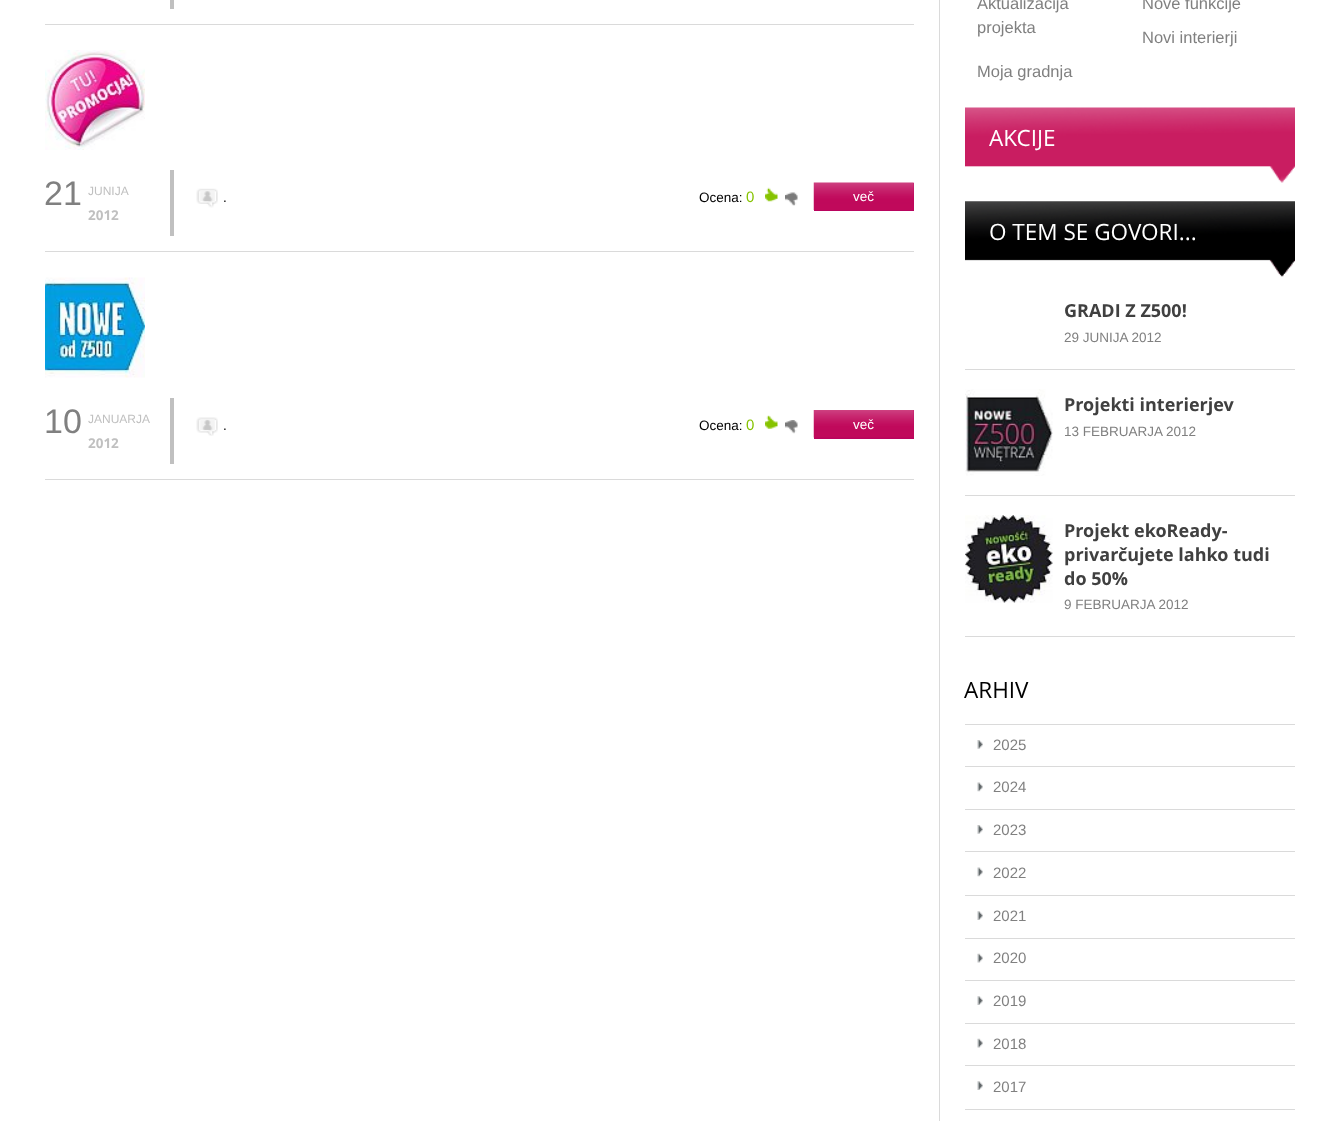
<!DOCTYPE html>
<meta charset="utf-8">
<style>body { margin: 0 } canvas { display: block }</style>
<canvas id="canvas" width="1338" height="1121"></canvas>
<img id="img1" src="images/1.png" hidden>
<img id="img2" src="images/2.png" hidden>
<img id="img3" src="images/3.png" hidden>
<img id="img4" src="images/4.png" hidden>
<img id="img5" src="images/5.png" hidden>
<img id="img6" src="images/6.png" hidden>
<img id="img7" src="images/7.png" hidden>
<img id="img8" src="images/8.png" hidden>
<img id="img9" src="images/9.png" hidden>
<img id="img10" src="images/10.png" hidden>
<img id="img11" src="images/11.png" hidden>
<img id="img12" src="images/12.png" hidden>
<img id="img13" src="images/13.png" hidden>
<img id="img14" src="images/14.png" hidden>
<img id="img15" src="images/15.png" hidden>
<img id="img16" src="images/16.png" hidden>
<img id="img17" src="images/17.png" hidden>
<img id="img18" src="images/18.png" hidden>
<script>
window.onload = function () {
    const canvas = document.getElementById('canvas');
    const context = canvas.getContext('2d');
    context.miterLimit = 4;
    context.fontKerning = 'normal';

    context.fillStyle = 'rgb(255, 255, 255)';
    context.fillRect(0, 0, 1338, 1121);
    context.fillStyle = 'rgb(218, 218, 218)';
    context.fillRect(45, 24, 869, 1);
    context.fillStyle = 'rgb(192, 192, 192)';
    context.fillRect(170, 0, 4, 9);
    context.fillStyle = 'rgb(218, 218, 218)';
    context.fillRect(45, 251, 869, 1);
    context.drawImage(document.getElementById('img1'), 45, 50, 100, 100);
    context.fillStyle = 'rgb(192, 192, 192)';
    context.fillRect(170, 170, 4, 66);
    context.drawImage(document.getElementById('img2'), 196, 188, 22, 20);
    context.drawImage(document.getElementById('img3'), 765, 187, 13, 15);
    context.drawImage(document.getElementById('img4'), 785, 192, 13, 14);
    context.fillStyle = 'rgb(185, 4, 95)';
    context.fillRect(814, 183, 100, 28);
    context.drawImage(document.getElementById('img5'), 813, 182, 101, 28);
    context.fillStyle = 'rgb(218, 218, 218)';
    context.fillRect(45, 479, 869, 1);
    context.drawImage(document.getElementById('img6'), 45, 277, 100, 101);
    context.fillStyle = 'rgb(192, 192, 192)';
    context.fillRect(170, 398, 4, 66);
    context.drawImage(document.getElementById('img7'), 196, 417, 22, 19);
    context.drawImage(document.getElementById('img8'), 765, 415, 13, 14);
    context.drawImage(document.getElementById('img9'), 785, 420, 13, 14);
    context.fillStyle = 'rgb(185, 4, 95)';
    context.fillRect(814, 410, 100, 29);
    context.drawImage(document.getElementById('img10'), 813, 410, 101, 28);
    context.fillStyle = 'rgb(218, 218, 218)';
    context.fillRect(939, 0, 1, 1121);
    context.drawImage(document.getElementById('img11'), 965, 107, 330, 76);
    context.drawImage(document.getElementById('img12'), 965, 201, 330, 76);
    context.fillRect(965, 369, 330, 1);
    context.fillRect(965, 495, 330, 1);
    context.drawImage(document.getElementById('img13'), 965, 389, 88, 87);
    context.fillRect(965, 636, 330, 1);
    context.drawImage(document.getElementById('img14'), 965, 515, 88, 88);
    context.fillRect(965, 724, 330, 1);
    context.drawImage(document.getElementById('img15'), 977, 740, 6, 9);
    context.fillRect(965, 766, 330, 1);
    context.drawImage(document.getElementById('img16'), 977, 782, 6, 10);
    context.fillRect(965, 809, 330, 1);
    context.drawImage(document.getElementById('img15'), 977, 825, 6, 9);
    context.fillRect(965, 851, 330, 1);
    context.drawImage(document.getElementById('img16'), 977, 867, 6, 10);
    context.fillRect(965, 895, 330, 1);
    context.drawImage(document.getElementById('img17'), 977, 911, 6, 9);
    context.fillRect(965, 938, 330, 1);
    context.drawImage(document.getElementById('img18'), 977, 953, 6, 10);
    context.fillRect(965, 980, 330, 1);
    context.drawImage(document.getElementById('img17'), 977, 996, 6, 9);
    context.fillRect(965, 1023, 330, 1);
    context.drawImage(document.getElementById('img18'), 977, 1038, 6, 10);
    context.fillRect(965, 1065, 330, 1);
    context.drawImage(document.getElementById('img17'), 977, 1081, 6, 9);
    context.fillRect(965, 1109, 330, 1);
    context.font = '34px Liberation Sans';
    context.fillStyle = 'rgb(128, 128, 128)';
    context.fillText('21', 44, 205);
    context.font = '12px Liberation Sans';
    context.fillStyle = 'rgb(192, 192, 192)';
    context.fillText('JUNIJA', 88, 195);
    context.font = 'bold 13.5px Open Sans';
    context.fillText('2012', 88, 220);
    context.font = '13.5px Liberation Sans';
    context.fillStyle = 'rgb(0, 0, 0)';
    context.fillText('.', 223, 202);
    context.fillText('Ocena:', 699, 202);
    context.font = '15px Liberation Sans';
    context.fillStyle = 'rgb(134, 195, 0)';
    context.fillText('0', 746, 202);
    context.font = '13.5px Liberation Sans';
    context.fillStyle = 'rgb(255, 255, 255)';
    context.fillText('več', 853, 201);
    context.font = '34px Liberation Sans';
    context.fillStyle = 'rgb(128, 128, 128)';
    context.fillText('10', 44, 433);
    context.font = '12px Liberation Sans';
    context.fillStyle = 'rgb(192, 192, 192)';
    context.fillText('JANUARJA', 88, 423);
    context.font = 'bold 13.5px Open Sans';
    context.fillText('2012', 88, 448);
    context.font = '13.5px Liberation Sans';
    context.fillStyle = 'rgb(0, 0, 0)';
    context.fillText('.', 223, 430);
    context.fillText('Ocena:', 699, 430);
    context.font = '15px Liberation Sans';
    context.fillStyle = 'rgb(134, 195, 0)';
    context.fillText('0', 746, 430);
    context.font = '13.5px Liberation Sans';
    context.fillStyle = 'rgb(255, 255, 255)';
    context.fillText('več', 853, 429);
    context.font = '16.5px Liberation Sans';
    context.fillStyle = 'rgb(128, 128, 128)';
    context.fillText('Aktualizacija', 977, 9);
    context.fillText('projekta', 977, 33);
    context.fillText('Nove funkcije', 1142, 9);
    context.fillText('Novi interierji', 1142, 43);
    context.fillText('Moja gradnja', 977, 77);
    context.font = '22.5px Open Sans';
    context.fillStyle = 'rgb(255, 255, 255)';
    context.fillText('AKCIJE', 989, 146);
    context.fillText('O TEM SE GOVORI...', 989, 240);
    context.font = 'bold 18px Open Sans';
    context.fillStyle = 'rgb(64, 64, 64)';
    context.fillText('GRADI Z Z500!', 1064, 317);
    context.font = '13.5px Liberation Sans';
    context.fillStyle = 'rgb(128, 128, 128)';
    context.fillText('29 JUNIJA 2012', 1064, 342);
    context.font = 'bold 18px Open Sans';
    context.fillStyle = 'rgb(64, 64, 64)';
    context.fillText('Projekti interierjev', 1064, 411);
    context.font = '13.5px Liberation Sans';
    context.fillStyle = 'rgb(128, 128, 128)';
    context.fillText('13 FEBRUARJA 2012', 1064, 436);
    context.font = 'bold 18px Open Sans';
    context.fillStyle = 'rgb(64, 64, 64)';
    context.fillText('Projekt ekoReady-', 1064, 537);
    context.fillText('privarčujete lahko tudi', 1064, 561);
    context.fillText('do 50%', 1064, 585);
    context.font = '13.5px Liberation Sans';
    context.fillStyle = 'rgb(128, 128, 128)';
    context.fillText('9 FEBRUARJA 2012', 1064, 609);
    context.font = '22.5px Open Sans';
    context.fillStyle = 'rgb(0, 0, 0)';
    context.fillText('ARHIV', 964, 698);
    context.font = '15px Liberation Sans';
    context.fillStyle = 'rgb(128, 128, 128)';
    context.fillText('2025', 993, 750);
    context.fillText('2024', 993, 792);
    context.fillText('2023', 993, 835);
    context.fillText('2022', 993, 878);
    context.fillText('2021', 993, 921);
    context.fillText('2020', 993, 963);
    context.fillText('2019', 993, 1006);
    context.fillText('2018', 993, 1049);
    context.fillText('2017', 993, 1092);
};
</script>
